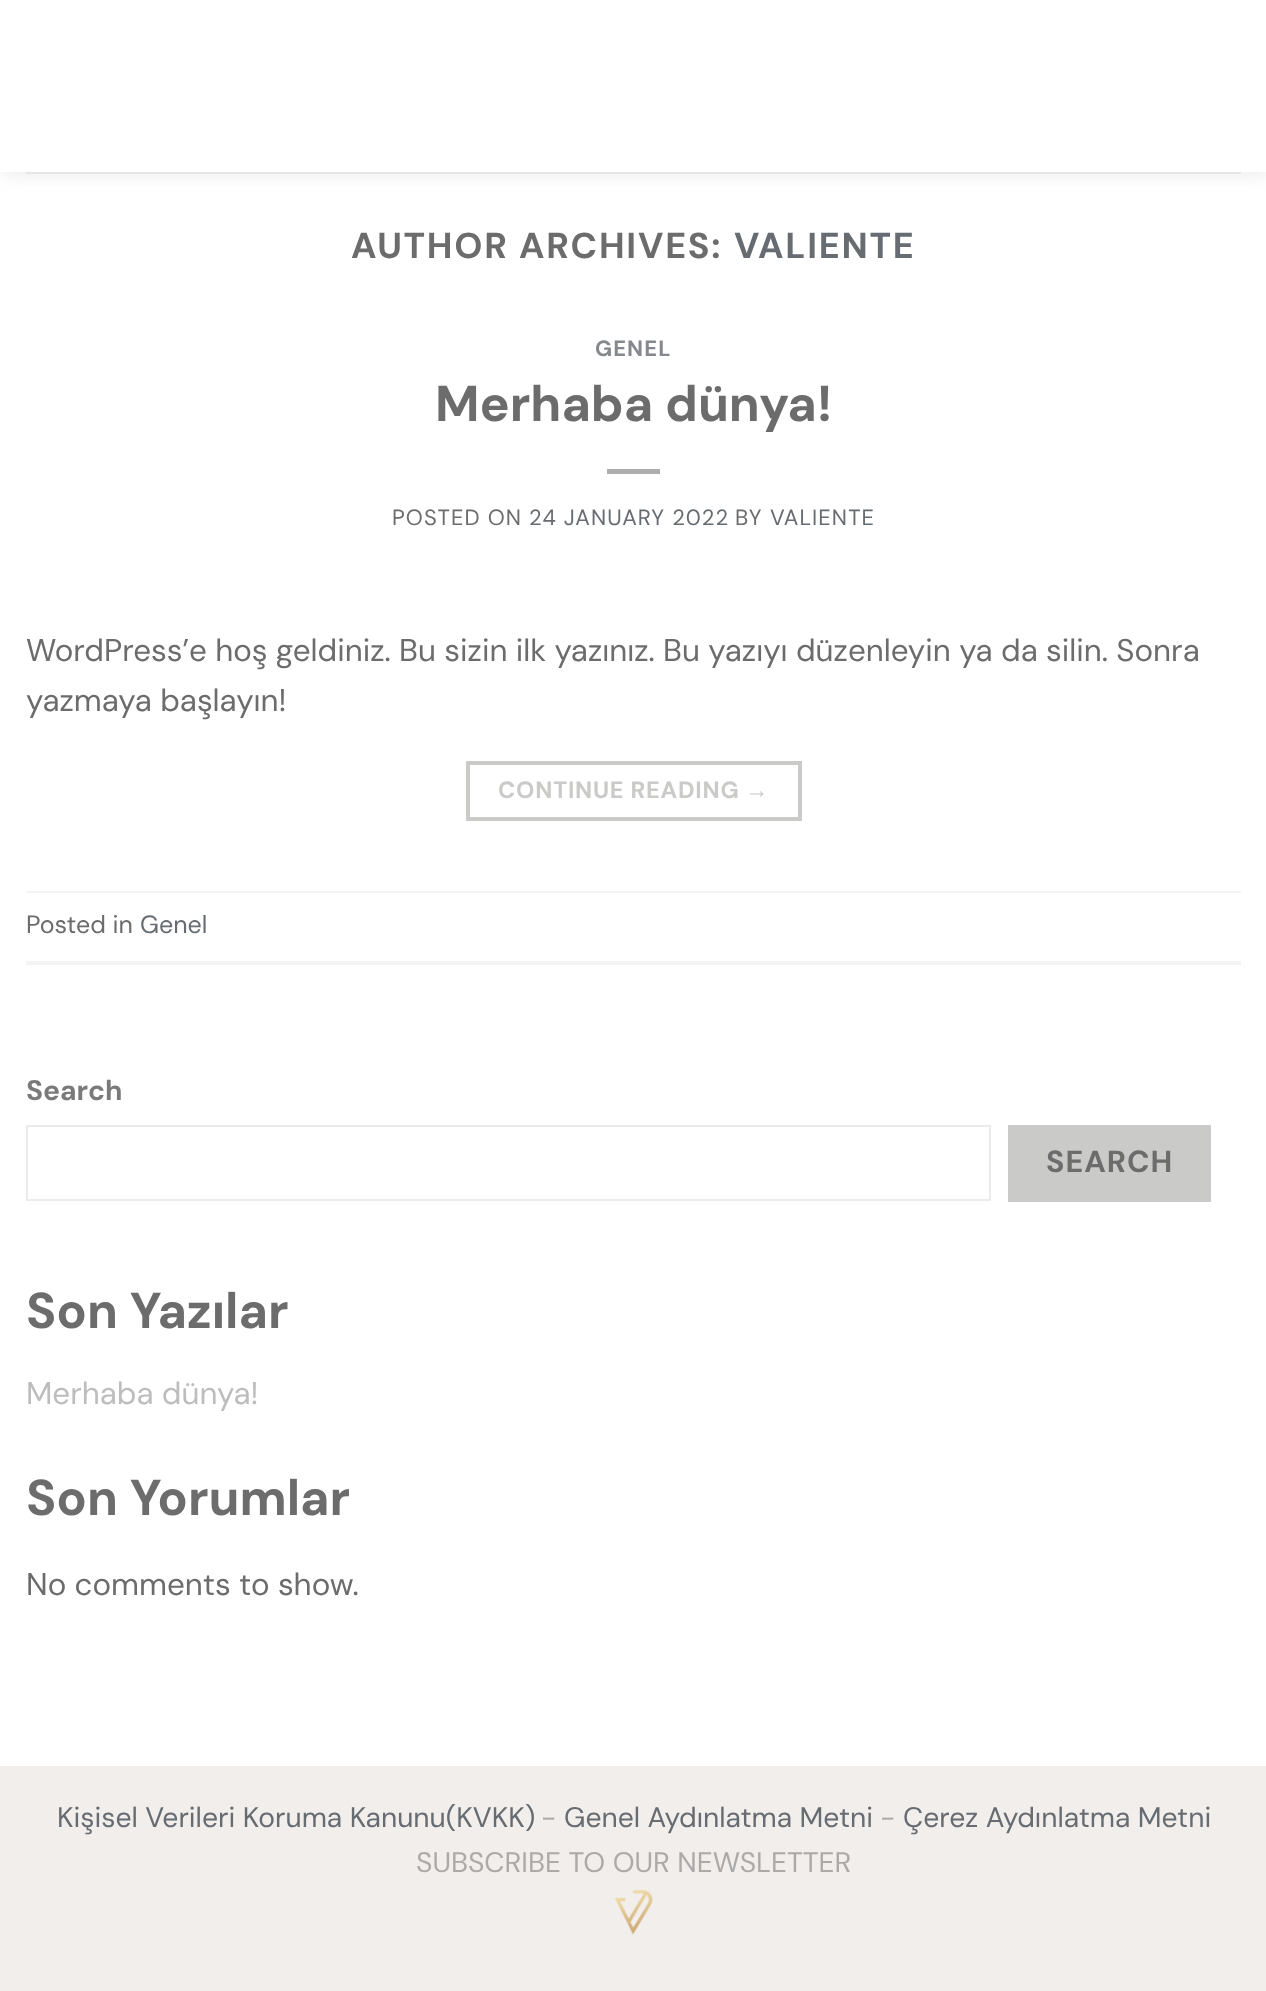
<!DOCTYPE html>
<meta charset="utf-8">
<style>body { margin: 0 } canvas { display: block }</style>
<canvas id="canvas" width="1266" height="1991"></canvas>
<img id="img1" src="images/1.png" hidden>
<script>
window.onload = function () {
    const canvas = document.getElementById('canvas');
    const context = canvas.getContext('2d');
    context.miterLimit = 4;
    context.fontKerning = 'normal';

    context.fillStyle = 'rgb(255, 255, 255)';
    context.fillRect(0, 0, 1266, 1991);
    context.save();
    context.beginPath();
    context.moveTo(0, 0);
    context.lineTo(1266, 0);
    context.lineTo(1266, 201);
    context.lineTo(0, 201);
    context.closePath();
    context.moveTo(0, -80);
    context.lineTo(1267, -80);
    context.lineTo(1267, 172);
    context.lineTo(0, 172);
    context.closePath();
    context.clip('evenodd');
    context.fillStyle = 'rgba(102, 102, 102, 0.15)';
    context.filter = 'blur(9px)';
    context.beginPath();
    context.rect(2, -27, 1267, 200);
    context.fill();
    context.filter = 'none';
    context.restore();
    context.fillStyle = 'rgba(255, 255, 255, 0.9)';
    context.fillRect(1, 171, 1265, 1);
    context.fillStyle = 'rgb(230, 230, 230)';
    context.fillRect(26, 172, 1215, 2);
    context.fillStyle = 'rgb(173, 173, 173)';
    context.fillRect(607, 469, 53, 5);
    context.strokeStyle = 'rgb(202, 202, 200)';
    context.lineWidth = 4;
    context.strokeRect(468, 763, 332, 56);
    context.fillStyle = 'rgb(244, 244, 244)';
    context.fillRect(26, 891, 1215, 2);
    context.fillRect(26, 961, 1215, 4);
    context.strokeStyle = 'rgb(235, 235, 235)';
    context.lineWidth = 2;
    context.strokeRect(27, 1126, 963, 74);
    context.fillStyle = 'rgb(202, 202, 200)';
    context.fillRect(1008, 1125, 203, 77);
    context.fillStyle = 'rgb(241, 238, 235)';
    context.fillRect(0, 1766, 1266, 225);
    context.drawImage(document.getElementById('img1'), 614, 1889, 39, 46);
    context.letterSpacing = '1.75px';
    context.font = 'bold 36px DM Sans';
    context.fillStyle = 'rgb(108, 108, 108)';
    context.fillText('AUTHOR ARCHIVES:', 351, 258);
    context.fillStyle = 'rgb(102, 108, 114)';
    context.fillText('VALIENTE', 734, 258);
    context.letterSpacing = '1.1px';
    context.font = 'bold 22px DM Sans';
    context.fillStyle = 'rgb(133, 137, 142)';
    context.fillText('GENEL', 595, 356);
    context.letterSpacing = '0px';
    context.font = 'bold 50.25px DM Sans';
    context.fillStyle = 'rgb(108, 108, 108)';
    context.fillText('Merhaba dünya!', 435, 421);
    context.letterSpacing = '1.1px';
    context.font = '22px DM Sans';
    context.fillText('POSTED ON', 392, 525);
    context.fillStyle = 'rgb(102, 108, 114)';
    context.fillText('24 JANUARY 2022', 529, 525);
    context.fillStyle = 'rgb(108, 108, 108)';
    context.fillText('BY', 735, 525);
    context.fillStyle = 'rgb(102, 108, 114)';
    context.fillText('VALIENTE', 770, 525);
    context.letterSpacing = '0px';
    context.font = '31.35px DM Sans';
    context.fillStyle = 'rgb(108, 108, 108)';
    context.fillText('WordPress’e hoş geldiniz. Bu sizin ilk yazınız. Bu yazıyı düzenleyin ya da silin. Sonra', 26, 661);
    context.fillText('yazmaya başlayın!', 26, 711);
    context.letterSpacing = '0.75px';
    context.font = 'bold 23.5px DM Sans';
    context.fillStyle = 'rgb(202, 202, 200)';
    context.fillText('CONTINUE READING', 498, 798);
    context.font = 'bold 23.5px Liberation Sans';
    context.fillText('→', 745, 798);
    context.letterSpacing = '0px';
    context.font = '25px DM Sans';
    context.fillStyle = 'rgb(108, 108, 108)';
    context.fillText('Posted in', 26, 933);
    context.fillStyle = 'rgb(102, 108, 114)';
    context.fillText('Genel', 140, 933);
    context.font = 'bold 28.25px DM Sans';
    context.fillStyle = 'rgb(122, 122, 122)';
    context.fillText('Search', 26, 1100);
    context.letterSpacing = '1px';
    context.font = 'bold 30.5px DM Sans';
    context.fillStyle = 'rgb(108, 108, 108)';
    context.fillText('SEARCH', 1046, 1172);
    context.letterSpacing = '0px';
    context.font = 'bold 50.25px DM Sans';
    context.fillText('Son Yazılar', 26, 1328);
    context.font = '31.35px DM Sans';
    context.fillStyle = 'rgb(189, 189, 189)';
    context.fillText('Merhaba dünya!', 26, 1404);
    context.font = 'bold 50.25px DM Sans';
    context.fillStyle = 'rgb(108, 108, 108)';
    context.fillText('Son Yorumlar', 26, 1515);
    context.font = '31.35px DM Sans';
    context.fillText('No comments to show.', 26, 1595);
    context.font = '28.25px DM Sans';
    context.fillStyle = 'rgb(102, 108, 114)';
    context.fillText('Kişisel Verileri Koruma Kanunu(KVKK)', 57, 1827);
    context.fillStyle = 'rgb(172, 170, 169)';
    context.fillText('-', 541, 1827);
    context.fillStyle = 'rgb(102, 108, 114)';
    context.fillText('Genel Aydınlatma Metni', 564, 1827);
    context.fillStyle = 'rgb(172, 170, 169)';
    context.fillText('-', 880, 1827);
    context.fillStyle = 'rgb(102, 108, 114)';
    context.fillText('Çerez Aydınlatma Metni', 903, 1827);
    context.fillStyle = 'rgb(172, 170, 169)';
    context.fillText('SUBSCRIBE TO OUR NEWSLETTER', 416, 1872);
};
</script>
